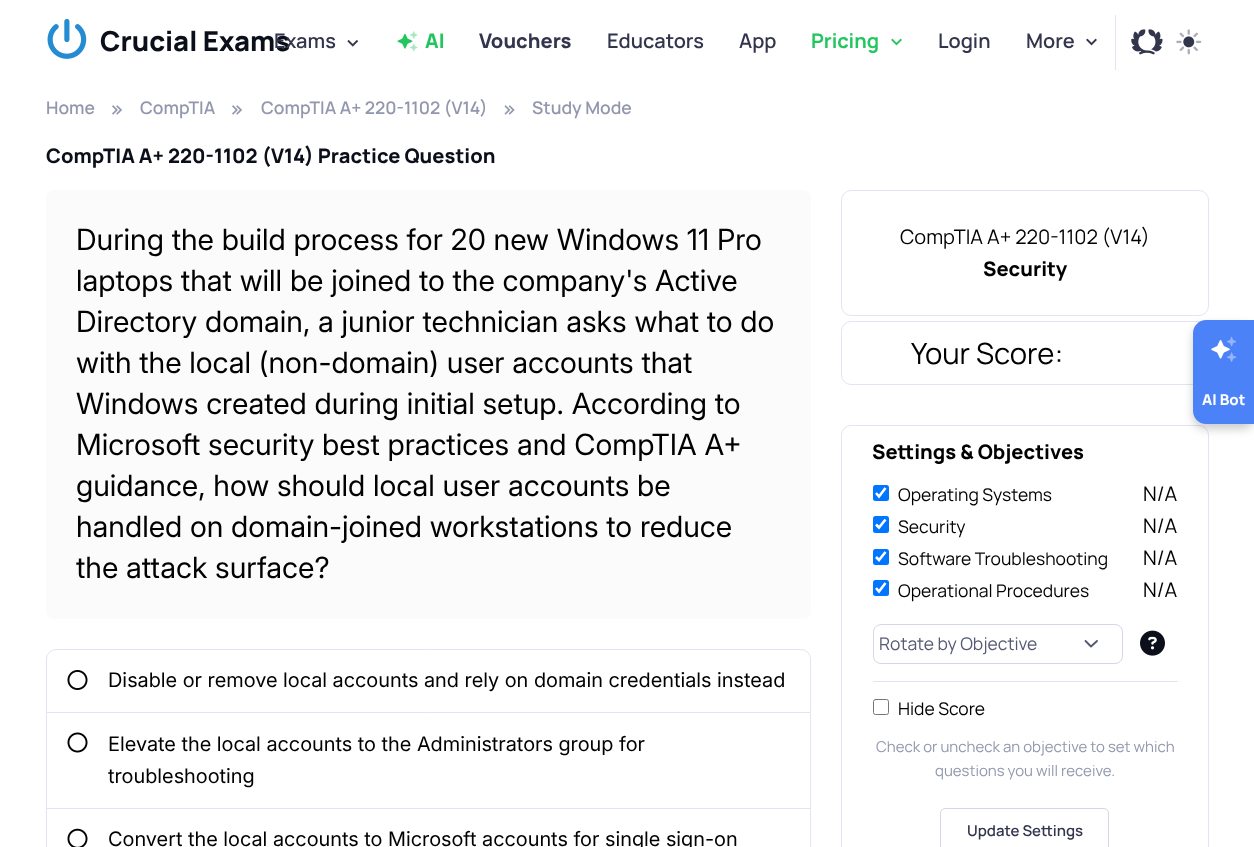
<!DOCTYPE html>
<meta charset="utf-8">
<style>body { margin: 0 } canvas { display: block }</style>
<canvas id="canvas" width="1254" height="847"></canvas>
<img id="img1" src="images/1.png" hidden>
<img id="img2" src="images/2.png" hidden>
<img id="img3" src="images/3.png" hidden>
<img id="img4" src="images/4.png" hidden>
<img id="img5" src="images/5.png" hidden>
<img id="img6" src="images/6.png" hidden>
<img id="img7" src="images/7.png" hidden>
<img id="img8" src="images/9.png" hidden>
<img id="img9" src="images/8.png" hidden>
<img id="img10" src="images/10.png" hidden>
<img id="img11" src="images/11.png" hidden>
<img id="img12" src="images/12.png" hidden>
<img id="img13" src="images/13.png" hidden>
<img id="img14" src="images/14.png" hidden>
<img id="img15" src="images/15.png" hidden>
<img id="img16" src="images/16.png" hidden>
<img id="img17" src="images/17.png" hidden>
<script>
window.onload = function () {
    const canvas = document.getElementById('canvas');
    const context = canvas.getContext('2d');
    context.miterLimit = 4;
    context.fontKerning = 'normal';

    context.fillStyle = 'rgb(255, 255, 255)';
    context.fillRect(0, 0, 1254, 847);
    context.drawImage(document.getElementById('img1'), 47, 18, 40, 41);
    context.drawImage(document.getElementById('img2'), 347, 40, 12, 7);
    context.drawImage(document.getElementById('img3'), 397, 33, 16, 16);
    context.drawImage(document.getElementById('img4'), 410, 31, 8, 21);
    context.drawImage(document.getElementById('img5'), 891, 38, 11, 8);
    context.drawImage(document.getElementById('img6'), 1086, 38, 11, 8);
    context.fillStyle = 'rgb(226, 229, 241)';
    context.fillRect(1115, 15, 1, 55);
    context.drawImage(document.getElementById('img7'), 1131, 29, 32, 26);
    context.drawImage(document.getElementById('img8'), 1183, 36, 12, 12);
    context.drawImage(document.getElementById('img9'), 1176, 29, 26, 26);
    context.drawImage(document.getElementById('img10'), 112, 105, 10, 10);
    context.drawImage(document.getElementById('img10'), 232, 105, 10, 10);
    context.drawImage(document.getElementById('img11'), 504, 105, 11, 10);
    context.fillStyle = 'rgb(251, 251, 252)';
    context.beginPath();
    context.roundRect(46, 190, 765, 429, 8);
    context.fill();
    context.beginPath();
    context.roundRect(46.5, 649.5, 764, 63, [9.5, 9.5, 0, 0]);
    context.strokeStyle = 'rgb(226, 229, 241)';
    context.stroke();
    context.drawImage(document.getElementById('img12'), 67, 670, 21, 20);
    context.fillStyle = 'rgb(226, 229, 241)';
    context.fillRect(810, 713, 1, 134);
    context.fillRect(46, 808, 765, 1);
    context.fillRect(46, 713, 1, 134);
    context.drawImage(document.getElementById('img13'), 67, 732, 21, 21);
    context.drawImage(document.getElementById('img14'), 67, 828, 21, 19);
    context.beginPath();
    context.roundRect(841.5, 190.5, 367, 125, 9.5);
    context.stroke();
    context.beginPath();
    context.roundRect(841.5, 321.5, 367, 63, 9.5);
    context.stroke();
    context.beginPath();
    context.roundRect(841.5, 425.5, 367, 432, 9.5);
    context.stroke();
    context.fillStyle = 'rgb(0, 117, 255)';
    context.beginPath();
    context.roundRect(873, 485, 16, 16, 2.5);
    context.fill();
    context.beginPath();
    context.moveTo(876, 493);
    context.lineTo(879, 496.5);
    context.lineTo(885.5, 488);
    context.strokeStyle = 'rgb(255, 255, 255)';
    context.lineWidth = 2.6;
    context.stroke();
    context.beginPath();
    context.roundRect(873, 516, 16, 17, 2.5);
    context.fill();
    context.beginPath();
    context.moveTo(876, 524.5);
    context.lineTo(879, 527.5);
    context.lineTo(885.5, 519.5);
    context.stroke();
    context.beginPath();
    context.roundRect(873, 549, 16, 16, 2.5);
    context.fill();
    context.beginPath();
    context.moveTo(876, 557);
    context.lineTo(879, 560);
    context.lineTo(885.5, 552);
    context.stroke();
    context.beginPath();
    context.roundRect(873, 580, 16, 16, 2.5);
    context.fill();
    context.beginPath();
    context.moveTo(876, 588);
    context.lineTo(879, 591.5);
    context.lineTo(885.5, 583);
    context.stroke();
    context.beginPath();
    context.moveTo(1085.5, 641);
    context.lineTo(1091, 646.5);
    context.lineTo(1097, 641);
    context.strokeStyle = 'rgb(86, 89, 115)';
    context.lineWidth = 1.9;
    context.lineCap = 'round';
    context.lineJoin = 'round';
    context.stroke();
    context.beginPath();
    context.roundRect(873.5, 624.5, 249, 39, 7.5);
    context.strokeStyle = 'rgb(212, 215, 229)';
    context.lineWidth = 1;
    context.lineJoin = 'miter';
    context.stroke();
    context.drawImage(document.getElementById('img15'), 1140, 630, 25, 26);
    context.fillStyle = 'rgb(226, 229, 241)';
    context.fillRect(873, 681, 305, 1);
    context.beginPath();
    context.roundRect(873.5, 699.5, 15, 15, 2);
    context.strokeStyle = 'rgb(118, 118, 118)';
    context.stroke();
    context.beginPath();
    context.roundRect(940.5, 808.5, 168, 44, 4.5);
    context.strokeStyle = 'rgb(212, 215, 229)';
    context.stroke();
    context.fillStyle = 'rgba(0, 0, 0, 0.2)';
    context.filter = 'blur(5px)';
    context.beginPath();
    context.roundRect(1193, 325, 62, 104, 13);
    context.fill();
    context.filter = 'none';
    context.fillStyle = 'rgb(76, 130, 247)';
    context.beginPath();
    context.moveTo(1206, 320);
    context.lineTo(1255, 320);
    context.lineTo(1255, 424);
    context.lineTo(1206, 424);
    context.bezierCurveTo(1199, 424, 1193, 418, 1193, 411);
    context.lineTo(1193, 333);
    context.bezierCurveTo(1193, 326, 1199, 320, 1206, 320);
    context.closePath();
    context.fill();
    context.drawImage(document.getElementById('img16'), 1211, 340, 19, 19);
    context.drawImage(document.getElementById('img17'), 1226, 336, 11, 26);
    context.font = '800 27.5px Manrope';
    context.fillStyle = 'rgb(11, 15, 25)';
    context.fillText('Crucial Exams', 100, 51);
    context.font = '600 20px Manrope';
    context.fillStyle = 'rgb(51, 53, 77)';
    context.fillText('Exams', 274, 48);
    context.font = '800 20px Manrope';
    context.fillStyle = 'rgb(34, 197, 94)';
    context.fillText('AI', 425, 48);
    context.fillStyle = 'rgb(51, 53, 77)';
    context.fillText('Vouchers', 479, 48);
    context.font = '600 20px Manrope';
    context.fillText('Educators', 607, 48);
    context.fillText('App', 739, 48);
    context.font = 'bold 20px Manrope';
    context.fillStyle = 'rgb(34, 197, 94)';
    context.fillText('Pricing', 811, 48);
    context.font = '600 20px Manrope';
    context.fillStyle = 'rgb(51, 53, 77)';
    context.fillText('Login', 938, 48);
    context.fillText('More', 1026, 48);
    context.font = '600 17.5px Manrope';
    context.fillStyle = 'rgb(147, 151, 173)';
    context.fillText('Home', 46, 114);
    context.fillText('CompTIA', 140, 114);
    context.fillText('CompTIA A+ 220-1102 (V14)', 261, 114);
    context.fillText('Study Mode', 532, 114);
    context.font = '800 20px Manrope';
    context.fillStyle = 'rgb(11, 15, 25)';
    context.fillText('CompTIA A+ 220-1102 (V14) Practice Question', 46, 163);
    context.font = '29.25px Inter';
    context.fillStyle = 'rgb(0, 0, 0)';
    context.fillText('During the build process for 20 new Windows 11 Pro', 76, 250);
    context.fillText('laptops that will be joined to the company\'s Active', 76, 291);
    context.fillText('Directory domain, a junior technician asks what to do', 76, 332);
    context.fillText('with the local (non-domain) user accounts that', 76, 373);
    context.fillText('Windows created during initial setup. According to', 76, 414);
    context.fillText('Microsoft security best practices and CompTIA A+', 76, 455);
    context.fillText('guidance, how should local user accounts be', 76, 496);
    context.fillText('handled on domain-joined workstations to reduce', 76, 537);
    context.fillText('the attack surface?', 76, 578);
    context.font = '20px "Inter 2"';
    context.fillText('Disable or remove local accounts and rely on domain credentials instead', 108, 687);
    context.fillText('Elevate the local accounts to the Administrators group for', 108, 751);
    context.fillText('troubleshooting', 108, 783);
    context.fillText('Convert the local accounts to Microsoft accounts for single sign-on', 108, 846);
    context.font = '20px Manrope';
    context.fillText('CompTIA A+ 220-1102 (V14)', 900, 244);
    context.font = '800 20px Manrope';
    context.fillText('Security', 983, 276);
    context.font = '29.25px Manrope';
    context.fillText('Your Score:', 911, 364);
    context.font = '800 20px Manrope';
    context.fillText('Settings & Objectives', 872, 459);
    context.font = '17.5px Manrope';
    context.fillText('Operating Systems', 898, 501);
    context.font = '20px Manrope';
    context.fillText('N/A', 1143, 501);
    context.font = '17.5px Manrope';
    context.fillText('Security', 898, 533);
    context.font = '20px Manrope';
    context.fillText('N/A', 1143, 533);
    context.font = '17.5px Manrope';
    context.fillText('Software Troubleshooting', 898, 565);
    context.font = '20px Manrope';
    context.fillText('N/A', 1143, 565);
    context.font = '17.5px Manrope';
    context.fillText('Operational Procedures', 898, 597);
    context.font = '20px Manrope';
    context.fillText('N/A', 1143, 597);
    context.font = '17.5px Manrope';
    context.fillStyle = 'rgb(86, 89, 115)';
    context.fillText('Rotate by Objective', 879, 650);
    context.fillStyle = 'rgb(0, 0, 0)';
    context.fillText('Hide Score', 898, 715);
    context.font = '15px Manrope';
    context.fillStyle = 'rgb(147, 151, 173)';
    context.fillText('Check or uncheck an objective to set which', 876, 752);
    context.fillText('questions you will receive.', 935, 776);
    context.font = '600 15px Manrope';
    context.fillStyle = 'rgb(51, 53, 77)';
    context.fillText('Update Settings', 967, 836);
    context.font = '800 15px Manrope';
    context.fillStyle = 'rgb(255, 255, 255)';
    context.fillText('AI Bot', 1202, 405);
};
</script>
